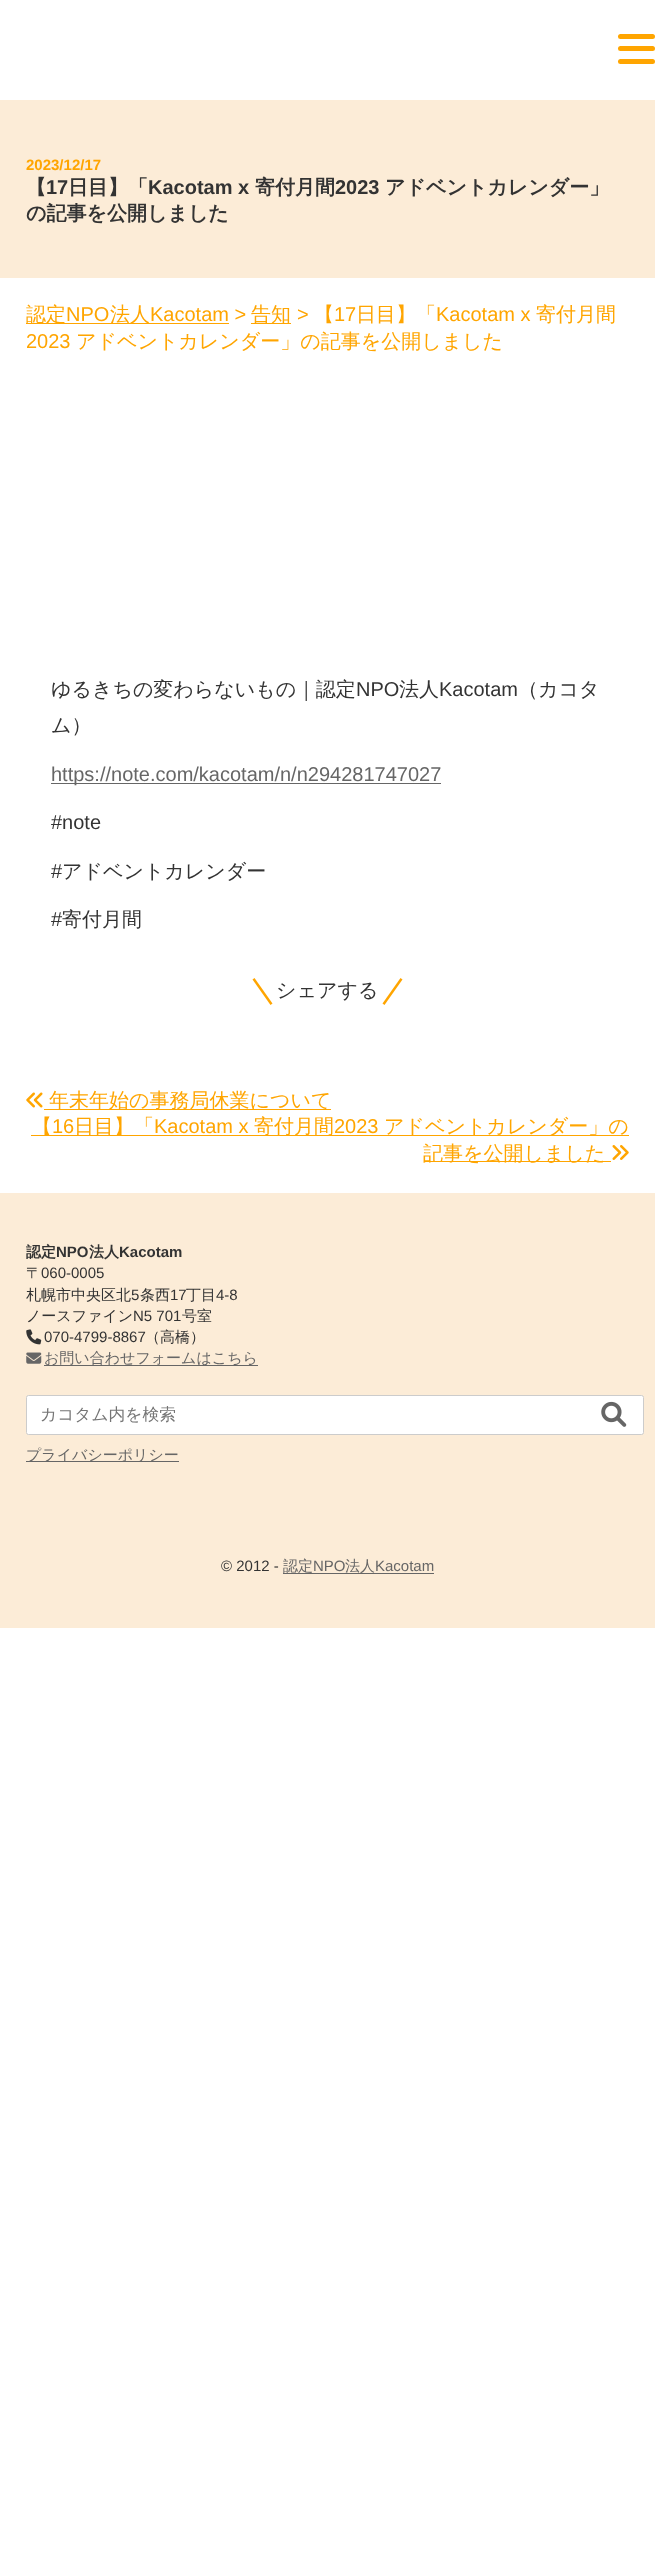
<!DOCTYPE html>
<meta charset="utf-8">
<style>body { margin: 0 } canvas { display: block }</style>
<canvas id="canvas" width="655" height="2572"></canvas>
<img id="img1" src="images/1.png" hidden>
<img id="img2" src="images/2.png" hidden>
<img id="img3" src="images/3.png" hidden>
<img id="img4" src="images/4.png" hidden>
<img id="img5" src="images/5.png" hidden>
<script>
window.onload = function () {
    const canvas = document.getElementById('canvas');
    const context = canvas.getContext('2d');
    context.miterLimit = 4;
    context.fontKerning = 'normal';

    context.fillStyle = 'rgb(255, 255, 255)';
    context.fillRect(0, 0, 655, 2572);
    context.fillStyle = 'rgb(255, 165, 0)';
    context.beginPath();
    context.roundRect(618, 34, 37, 5, 2.5);
    context.fill();
    context.beginPath();
    context.roundRect(618, 46, 37, 5, 2.5);
    context.fill();
    context.beginPath();
    context.roundRect(618, 59, 37, 5, 2.5);
    context.fill();
    context.fillStyle = 'rgb(252, 236, 215)';
    context.fillRect(0, 100, 655, 178);
    context.fillStyle = 'rgb(255, 165, 0)';
    context.fillRect(26, 323, 203, 1);
    context.fillRect(251, 323, 40, 1);
    context.fillStyle = 'rgb(102, 102, 102)';
    context.fillRect(51, 783, 390, 1);
    context.fillStyle = 'rgb(255, 165, 0)';
    context.beginPath();
    context.moveTo(252.5, 979.5);
    context.lineTo(254.5, 978);
    context.lineTo(272.5, 1003.5);
    context.lineTo(270.5, 1005);
    context.closePath();
    context.fill();
    context.beginPath();
    context.moveTo(400.5, 978);
    context.lineTo(402.5, 979.5);
    context.lineTo(384.5, 1005);
    context.lineTo(382.5, 1003.5);
    context.closePath();
    context.fill();
    context.drawImage(document.getElementById('img1'), 26, 1092, 17, 16);
    context.fillRect(44, 1109, 287, 1);
    context.fillRect(31, 1135, 598, 1);
    context.fillRect(424, 1161, 187, 1);
    context.drawImage(document.getElementById('img2'), 612, 1145, 17, 15);
    context.fillStyle = 'rgb(252, 236, 215)';
    context.fillRect(0, 1193, 655, 435);
    context.drawImage(document.getElementById('img3'), 26, 1329, 16, 16);
    context.drawImage(document.getElementById('img4'), 26, 1352, 16, 12);
    context.fillStyle = 'rgb(102, 102, 102)';
    context.fillRect(44, 1365, 214, 1);
    context.fillStyle = 'rgb(255, 255, 255)';
    context.beginPath();
    context.roundRect(26.5, 1395.5, 617, 39, 2);
    context.fill();
    context.strokeStyle = 'rgb(204, 204, 204)';
    context.stroke();
    context.drawImage(document.getElementById('img5'), 601, 1401, 26, 26);
    context.fillStyle = 'rgb(102, 102, 102)';
    context.fillRect(26, 1461, 153, 1);
    context.fillRect(283, 1573, 151, 1);
    context.font = 'bold 15px Liberation Sans';
    context.fillStyle = 'rgb(255, 165, 0)';
    context.fillText('2023/12/17', 26, 170);
    context.font = 'bold 20px WenQuanYi Zen Hei';
    context.fillStyle = 'rgb(51, 51, 51)';
    context.fillText('【', 26, 194);
    context.font = 'bold 20px Liberation Sans';
    context.fillText('17', 46, 194);
    context.font = 'bold 20px WenQuanYi Zen Hei';
    context.fillText('日目】「', 68, 194);
    context.font = 'bold 20px Liberation Sans';
    context.fillText('Kacotam x', 148, 194);
    context.font = 'bold 20px WenQuanYi Zen Hei';
    context.fillText('寄付月間', 255, 194);
    context.font = 'bold 20px Liberation Sans';
    context.fillText('2023', 335, 194);
    context.font = 'bold 20px WenQuanYi Zen Hei';
    context.fillText('アドベントカレンダー」', 385, 194);
    context.fillText('の記事を公開しました', 26, 220);
    context.font = '500 20px WenQuanYi Zen Hei';
    context.fillStyle = 'rgb(255, 165, 0)';
    context.fillText('認定', 26, 321);
    context.font = '20px Liberation Sans';
    context.fillText('NPO', 66, 321);
    context.font = '500 20px WenQuanYi Zen Hei';
    context.fillText('法人', 110, 321);
    context.font = '20px Liberation Sans';
    context.fillText('Kacotam >', 150, 321);
    context.font = '500 20px WenQuanYi Zen Hei';
    context.fillText('告知', 251, 321);
    context.font = '20px Liberation Sans';
    context.fillText('>', 297, 321);
    context.font = '500 20px WenQuanYi Zen Hei';
    context.fillText('【', 314, 321);
    context.font = '20px Liberation Sans';
    context.fillText('17', 334, 321);
    context.font = '500 20px WenQuanYi Zen Hei';
    context.fillText('日目】「', 356, 321);
    context.font = '20px Liberation Sans';
    context.fillText('Kacotam x', 436, 321);
    context.font = '500 20px WenQuanYi Zen Hei';
    context.fillText('寄付月間', 536, 321);
    context.font = '20px Liberation Sans';
    context.fillText('2023', 26, 348);
    context.font = '500 20px WenQuanYi Zen Hei';
    context.fillText('アドベントカレンダー」の記事を公開しました', 76, 348);
    context.fillStyle = 'rgb(51, 51, 51)';
    context.fillText('ゆるきちの変わらないもの｜認定', 51, 696);
    context.font = '20px Liberation Sans';
    context.fillText('NPO', 356, 696);
    context.font = '500 20px WenQuanYi Zen Hei';
    context.fillText('法人', 399, 696);
    context.font = '20px Liberation Sans';
    context.fillText('Kacotam', 439, 696);
    context.font = '500 20px WenQuanYi Zen Hei';
    context.fillText('（カコタ', 518, 696);
    context.fillText('ム）', 51, 732);
    context.font = '20px Liberation Sans';
    context.fillStyle = 'rgb(102, 102, 102)';
    context.fillText('https://note.com/kacotam/n/n294281747027', 51, 781);
    context.fillStyle = 'rgb(51, 51, 51)';
    context.fillText('#note', 51, 829);
    context.fillText('#', 51, 878);
    context.font = '500 20px WenQuanYi Zen Hei';
    context.fillText('アドベントカレンダー', 62, 878);
    context.font = '20px Liberation Sans';
    context.fillText('#', 51, 926);
    context.font = '500 20px WenQuanYi Zen Hei';
    context.fillText('寄付月間', 62, 926);
    context.fillText('シェアする', 276, 997);
    context.fillStyle = 'rgb(255, 165, 0)';
    context.fillText('年末年始の事務局休業について', 49, 1107);
    context.fillText('【', 32, 1133);
    context.font = '20px Liberation Sans';
    context.fillText('16', 52, 1133);
    context.font = '500 20px WenQuanYi Zen Hei';
    context.fillText('日目】「', 74, 1133);
    context.font = '20px Liberation Sans';
    context.fillText('Kacotam x', 154, 1133);
    context.font = '500 20px WenQuanYi Zen Hei';
    context.fillText('寄付月間', 254, 1133);
    context.font = '20px Liberation Sans';
    context.fillText('2023', 334, 1133);
    context.font = '500 20px WenQuanYi Zen Hei';
    context.fillText('アドベントカレンダー」の', 384, 1133);
    context.fillText('記事を公開しました', 423, 1160);
    context.font = 'bold 15px WenQuanYi Zen Hei';
    context.fillStyle = 'rgb(51, 51, 51)';
    context.fillText('認定', 26, 1257);
    context.font = 'bold 15px Liberation Sans';
    context.fillText('NPO', 56, 1257);
    context.font = 'bold 15px WenQuanYi Zen Hei';
    context.fillText('法人', 89, 1257);
    context.font = 'bold 15px Liberation Sans';
    context.fillText('Kacotam', 119, 1257);
    context.font = '500 15px WenQuanYi Zen Hei';
    context.fillText('〒', 26, 1278);
    context.font = '15px Liberation Sans';
    context.fillText('060-0005', 41, 1278);
    context.font = '500 15px WenQuanYi Zen Hei';
    context.fillText('札幌市中央区北', 26, 1300);
    context.font = '15px Liberation Sans';
    context.fillText('5', 131, 1300);
    context.font = '500 15px WenQuanYi Zen Hei';
    context.fillText('条西', 140, 1300);
    context.font = '15px Liberation Sans';
    context.fillText('17', 170, 1300);
    context.font = '500 15px WenQuanYi Zen Hei';
    context.fillText('丁目', 186, 1300);
    context.font = '15px Liberation Sans';
    context.fillText('4-8', 216, 1300);
    context.font = '500 15px WenQuanYi Zen Hei';
    context.fillText('ノースファイン', 26, 1321);
    context.font = '15px Liberation Sans';
    context.fillText('N5 701', 133, 1321);
    context.font = '500 15px WenQuanYi Zen Hei';
    context.fillText('号室', 182, 1321);
    context.font = '15px Liberation Sans';
    context.fillText('070-4799-8867', 44, 1342);
    context.font = '500 15px WenQuanYi Zen Hei';
    context.fillText('（高橋）', 145, 1342);
    context.fillStyle = 'rgb(102, 102, 102)';
    context.fillText('お問い合わせフォームはこちら', 44, 1363);
    context.font = '500 16.75px WenQuanYi Zen Hei';
    context.fillStyle = 'rgb(117, 117, 117)';
    context.fillText('カコタム内を検索', 40, 1420);
    context.font = '500 15px WenQuanYi Zen Hei';
    context.fillStyle = 'rgb(102, 102, 102)';
    context.fillText('プライバシーポリシー', 26, 1460);
    context.font = '15px Liberation Sans';
    context.fillStyle = 'rgb(51, 51, 51)';
    context.fillText('© 2012 -', 221, 1571);
    context.font = '500 15px WenQuanYi Zen Hei';
    context.fillStyle = 'rgb(102, 102, 102)';
    context.fillText('認定', 283, 1571);
    context.font = '15px Liberation Sans';
    context.fillText('NPO', 313, 1571);
    context.font = '500 15px WenQuanYi Zen Hei';
    context.fillText('法人', 345, 1571);
    context.font = '15px Liberation Sans';
    context.fillText('Kacotam', 375, 1571);
};
</script>
